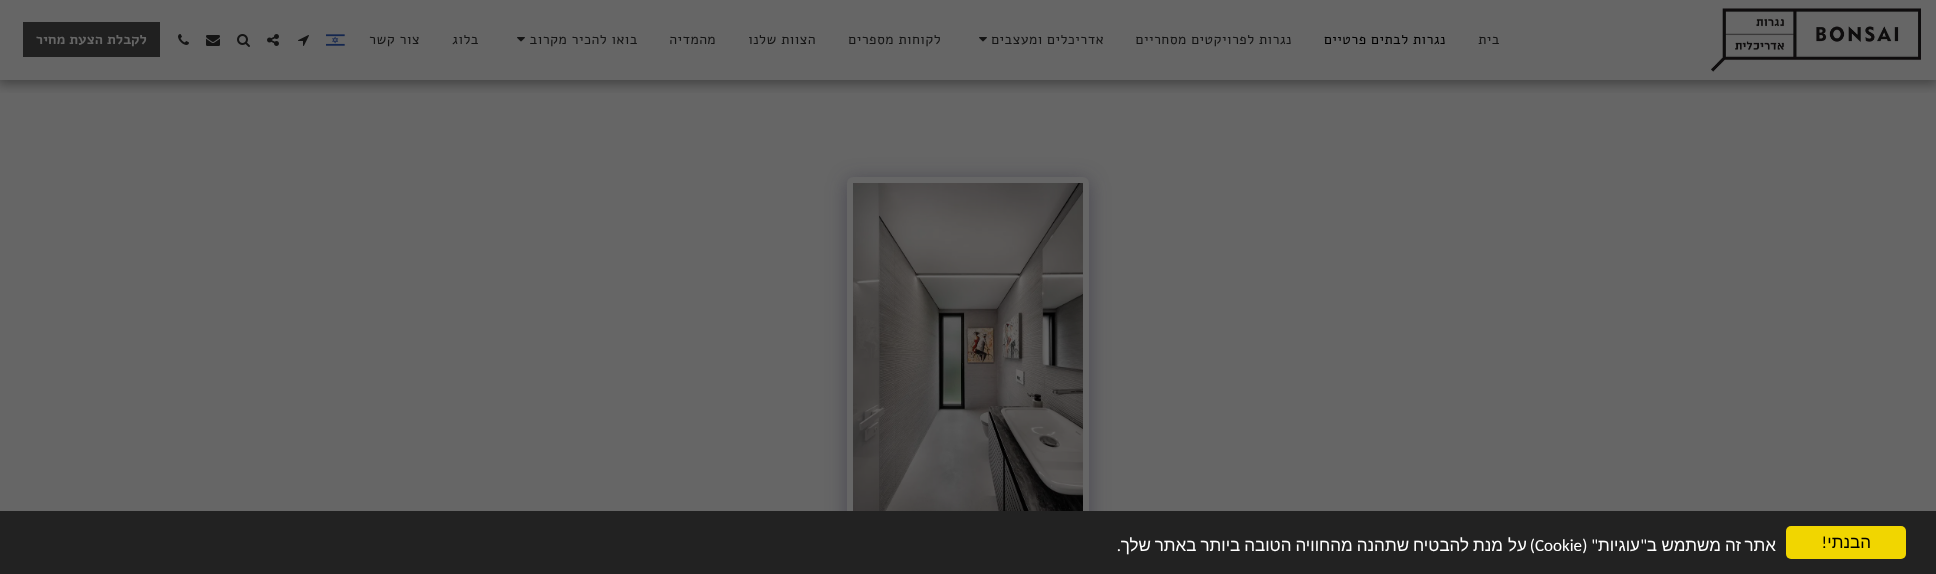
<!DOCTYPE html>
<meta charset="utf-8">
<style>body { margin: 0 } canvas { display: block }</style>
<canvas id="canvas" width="1936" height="574"></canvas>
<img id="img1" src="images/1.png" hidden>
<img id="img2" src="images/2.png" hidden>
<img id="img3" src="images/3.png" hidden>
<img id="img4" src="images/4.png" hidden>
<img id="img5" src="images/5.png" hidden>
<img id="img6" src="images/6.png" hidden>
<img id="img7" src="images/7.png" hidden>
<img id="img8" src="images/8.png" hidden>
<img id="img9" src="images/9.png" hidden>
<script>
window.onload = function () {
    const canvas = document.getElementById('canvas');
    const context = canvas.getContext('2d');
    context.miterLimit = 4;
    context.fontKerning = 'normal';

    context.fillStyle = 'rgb(102, 102, 102)';
    context.fillRect(0, 0, 1936, 574);
    context.save();
    context.beginPath();
    context.rect(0, 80, 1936, 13);
    context.clip();
    context.fillStyle = 'rgba(0, 0, 0, 0.35)';
    context.filter = 'blur(6px)';
    context.beginPath();
    context.rect(-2, 0, 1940, 84);
    context.fill();
    context.filter = 'none';
    context.restore();
    context.drawImage(document.getElementById('img1'), 1711, 8, 210, 64);
    context.drawImage(document.getElementById('img2'), 979, 37, 8, 5);
    context.drawImage(document.getElementById('img2'), 517, 37, 8, 5);
    context.drawImage(document.getElementById('img3'), 326, 34, 19, 12);
    context.drawImage(document.getElementById('img4'), 298, 35, 11, 11);
    context.drawImage(document.getElementById('img5'), 267, 34, 12, 12);
    context.drawImage(document.getElementById('img6'), 237, 34, 13, 13);
    context.drawImage(document.getElementById('img7'), 206, 35, 14, 11);
    context.drawImage(document.getElementById('img8'), 178, 34, 11, 11);
    context.fillStyle = 'rgb(32, 32, 32)';
    context.fillRect(23, 22, 137, 35);
    context.fillStyle = 'rgba(31, 25, 49, 0.4)';
    context.filter = 'blur(10px)';
    context.beginPath();
    context.roundRect(847, 180, 242, 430, 6);
    context.fill();
    context.filter = 'none';
    context.fillStyle = 'rgb(102, 102, 102)';
    context.beginPath();
    context.roundRect(847, 177, 242, 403, 6);
    context.fill();
    context.drawImage(document.getElementById('img9'), 853, 183, 230, 328);
    context.fillStyle = 'rgb(34, 34, 34)';
    context.fillRect(0, 511, 1936, 63);
    context.fillStyle = 'rgb(241, 214, 0)';
    context.beginPath();
    context.roundRect(1786, 526, 120, 33, 5);
    context.fill();
    context.letterSpacing = '0.5px';
    context.direction = 'rtl';
    context.font = '14px Alef';
    context.fillStyle = 'rgb(20, 20, 20)';
    context.fillText('בית', 1500, 44);
    context.fillStyle = 'rgb(0, 0, 0)';
    context.fillText('נגרות לבתים פרטיים', 1446, 44);
    context.fillStyle = 'rgb(20, 20, 20)';
    context.fillText('נגרות לפרויקטים מסחריים', 1292, 44);
    context.fillText('אדריכלים ומעצבים', 1104, 44);
    context.fillText('לקוחות מספרים', 941, 44);
    context.fillText('הצוות שלנו', 816, 44);
    context.fillText('מהמדיה', 716, 44);
    context.fillText('בואו להכיר מקרוב', 638, 44);
    context.fillText('בלוג', 479, 44);
    context.fillText('צור קשר', 420, 44);
    context.letterSpacing = '0px';
    context.font = 'bold 14px Alef';
    context.fillStyle = 'rgb(102, 102, 102)';
    context.fillText('לקבלת הצעת מחיר', 147, 44);
    context.font = '17px Liberation Sans';
    context.fillStyle = 'rgb(0, 0, 0)';
    context.fillText('הבנתי', 1871, 548);
    context.font = '17px Carlito';
    context.fillText('!', 1827, 548);
    context.font = '17px Liberation Sans';
    context.fillStyle = 'rgb(255, 255, 255)';
    context.fillText('אתר', 1776, 551);
    context.fillText('זה', 1741, 551);
    context.fillText('משתמש', 1721, 551);
    context.fillText('ב', 1657, 551);
    context.font = '17px Carlito';
    context.fillText('"', 1647, 551);
    context.font = '17px Liberation Sans';
    context.fillText('עוגיות', 1640, 551);
    context.font = '17px Carlito';
    context.fillText('" (', 1598, 551);
    context.direction = 'ltr';
    context.fillText('Cookie', 1535, 551);
    context.direction = 'rtl';
    context.fillText(')', 1535, 551);
    context.font = '17px Liberation Sans';
    context.fillText('על', 1527, 551);
    context.wordSpacing = '-0.75px';
    context.fillText('מנת להבטיח שתהנה מהחוויה הטובה ביותר באתר שלך', 1503, 551);
    context.wordSpacing = '0px';
    context.font = '17px Carlito';
    context.fillText('.', 1121, 551);
};
</script>
